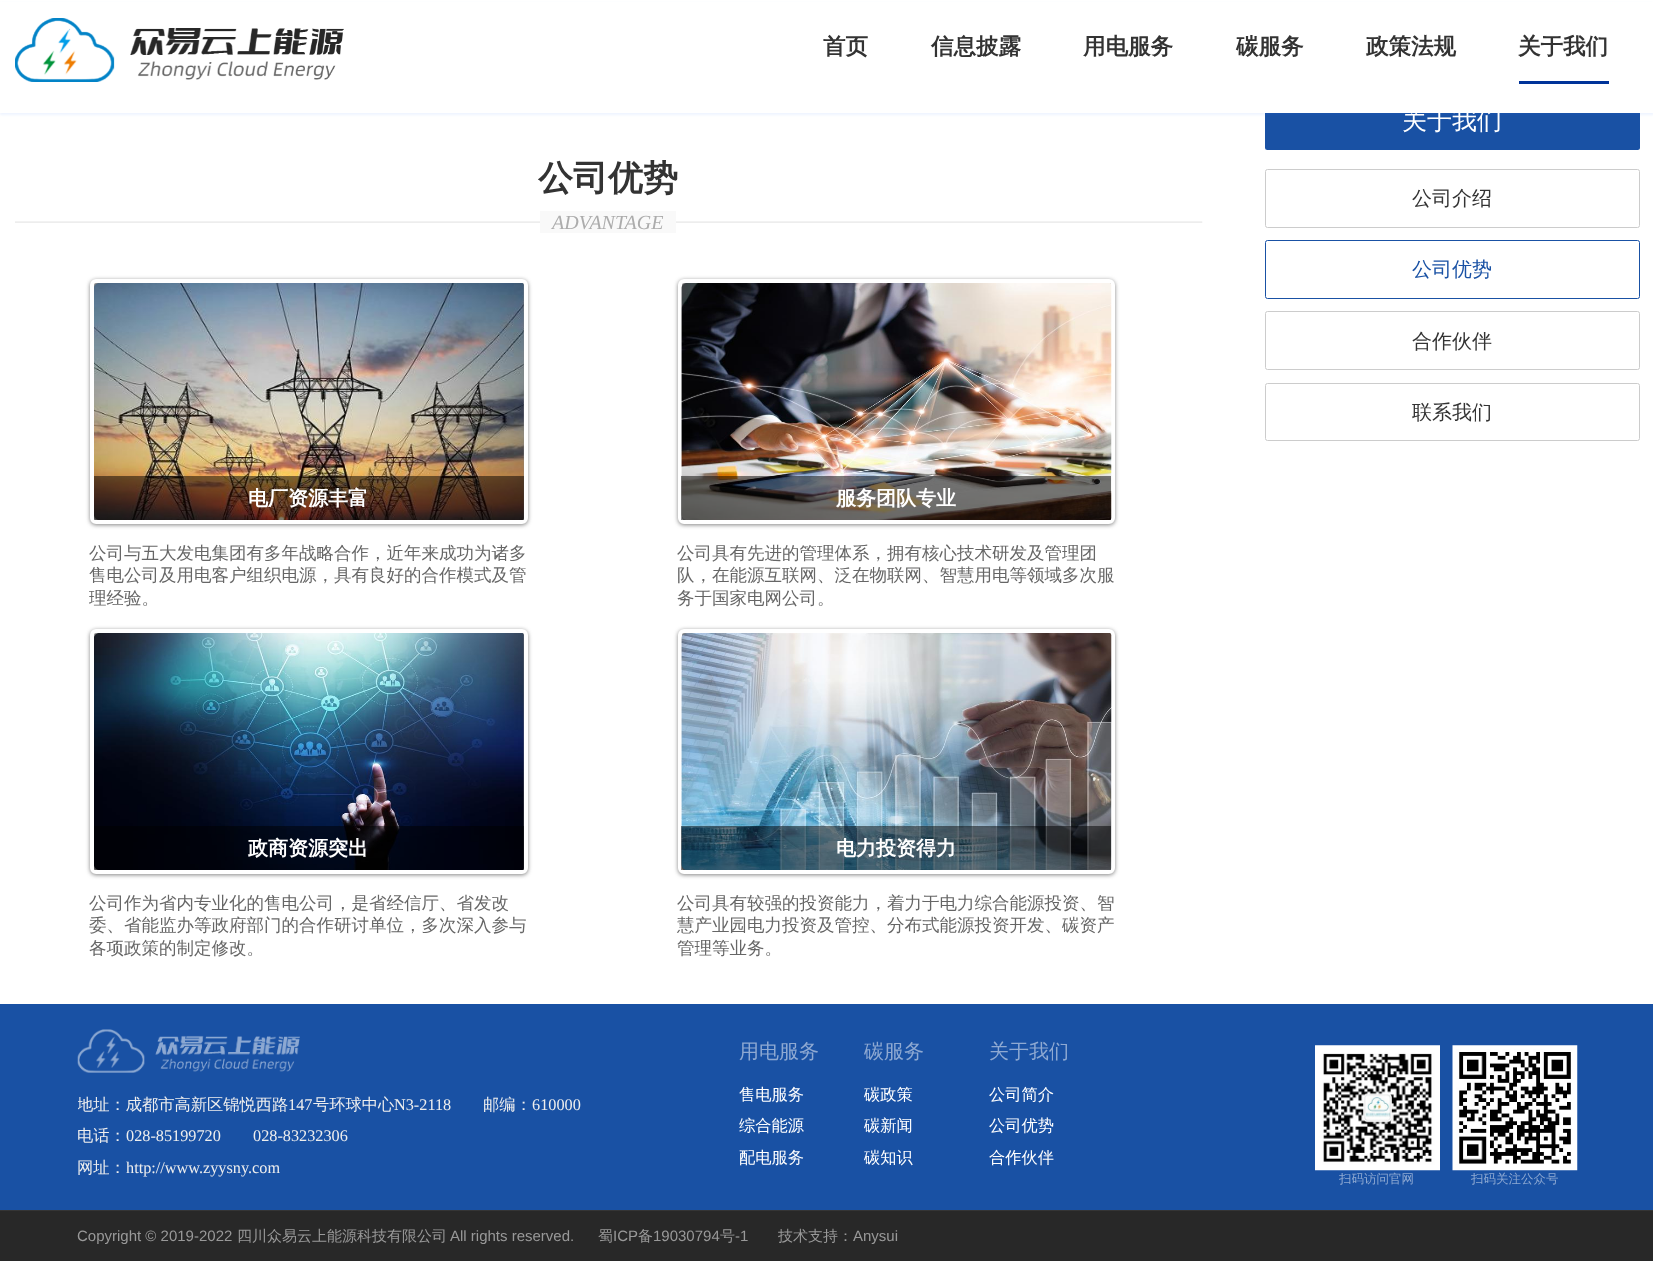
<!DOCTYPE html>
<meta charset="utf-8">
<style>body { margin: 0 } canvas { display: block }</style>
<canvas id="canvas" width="1653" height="1261"></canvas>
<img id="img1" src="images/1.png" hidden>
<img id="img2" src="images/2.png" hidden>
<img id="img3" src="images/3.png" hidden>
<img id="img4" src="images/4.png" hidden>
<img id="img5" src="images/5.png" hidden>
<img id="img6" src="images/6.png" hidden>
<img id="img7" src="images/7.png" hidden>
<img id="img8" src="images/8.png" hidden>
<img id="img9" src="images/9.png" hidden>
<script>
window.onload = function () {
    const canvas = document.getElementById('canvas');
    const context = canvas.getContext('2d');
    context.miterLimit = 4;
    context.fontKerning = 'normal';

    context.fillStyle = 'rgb(255, 255, 255)';
    context.fillRect(0, 0, 1653, 1261);
    context.fillStyle = 'rgb(25, 81, 164)';
    context.beginPath();
    context.roundRect(1265, 91, 375, 59, 2.5);
    context.fill();
    context.fillStyle = 'rgba(40, 120, 255, 0.08)';
    context.filter = 'blur(1px)';
    context.beginPath();
    context.rect(0, 3, 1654, 112);
    context.fill();
    context.filter = 'none';
    context.fillStyle = 'rgb(255, 255, 255)';
    context.fillRect(0, 2, 1653, 111);
    context.drawImage(document.getElementById('img1'), 15, 18, 329, 64);
    context.fillStyle = 'rgb(0, 51, 153)';
    context.fillRect(1519, 81, 90, 3);
    context.drawImage(document.getElementById('img2'), 15, 221, 1188, 2);
    context.fillStyle = 'rgb(249, 249, 249)';
    context.fillRect(540, 211, 136, 22);
    context.fillStyle = 'rgba(100, 100, 100, 0.8)';
    context.filter = 'blur(2px)';
    context.beginPath();
    context.roundRect(90, 280, 438, 245, 6);
    context.fill();
    context.filter = 'none';
    context.beginPath();
    context.roundRect(92, 281, 434, 241, 4);
    context.strokeStyle = 'rgb(255, 255, 255)';
    context.lineWidth = 4;
    context.stroke();
    context.drawImage(document.getElementById('img3'), 94, 283, 430, 237);
    context.fillStyle = 'rgba(0, 0, 0, 0.5)';
    context.fillRect(94, 476, 430, 44);
    context.fillStyle = 'rgba(100, 100, 100, 0.8)';
    context.filter = 'blur(2px)';
    context.beginPath();
    context.roundRect(678, 280, 437, 245, 6);
    context.fill();
    context.filter = 'none';
    context.beginPath();
    context.roundRect(680, 281, 433, 241, 4);
    context.stroke();
    context.drawImage(document.getElementById('img4'), 681, 283, 431, 237);
    context.fillStyle = 'rgba(0, 0, 0, 0.5)';
    context.fillRect(681, 476, 430, 44);
    context.fillStyle = 'rgba(100, 100, 100, 0.8)';
    context.filter = 'blur(2px)';
    context.beginPath();
    context.roundRect(90, 630, 438, 245, 6);
    context.fill();
    context.filter = 'none';
    context.beginPath();
    context.roundRect(92, 631, 434, 241, 4);
    context.stroke();
    context.drawImage(document.getElementById('img5'), 94, 633, 430, 237);
    context.fillStyle = 'rgba(0, 0, 0, 0.5)';
    context.fillRect(94, 826, 430, 44);
    context.fillStyle = 'rgba(100, 100, 100, 0.8)';
    context.filter = 'blur(2px)';
    context.beginPath();
    context.roundRect(678, 630, 437, 245, 6);
    context.fill();
    context.filter = 'none';
    context.beginPath();
    context.roundRect(680, 631, 433, 241, 4);
    context.stroke();
    context.drawImage(document.getElementById('img6'), 681, 633, 431, 237);
    context.fillStyle = 'rgba(0, 0, 0, 0.5)';
    context.fillRect(681, 826, 430, 44);
    context.beginPath();
    context.roundRect(1265.5, 169.5, 374, 58, 2);
    context.strokeStyle = 'rgb(204, 204, 204)';
    context.lineWidth = 1;
    context.stroke();
    context.beginPath();
    context.roundRect(1265.5, 240.5, 374, 58, 2);
    context.strokeStyle = 'rgb(25, 81, 164)';
    context.stroke();
    context.beginPath();
    context.roundRect(1265.5, 311.5, 374, 58, 2);
    context.strokeStyle = 'rgb(204, 204, 204)';
    context.stroke();
    context.beginPath();
    context.roundRect(1265.5, 383.5, 374, 57, 2);
    context.stroke();
    context.fillStyle = 'rgb(25, 81, 164)';
    context.fillRect(0, 1004, 1653, 206);
    context.drawImage(document.getElementById('img7'), 77, 1029, 223, 44);
    context.drawImage(document.getElementById('img8'), 1315, 1045, 125, 126);
    context.drawImage(document.getElementById('img9'), 1452, 1045, 126, 126);
    context.fillStyle = 'rgb(40, 40, 40)';
    context.fillRect(0, 1211, 1653, 50);
    context.fillStyle = 'rgb(53, 53, 53)';
    context.fillRect(0, 1210, 1653, 1);
    context.font = 'bold 22.5px WenQuanYi Zen Hei';
    context.fillStyle = 'rgb(51, 51, 51)';
    context.fillText('首页', 823, 54);
    context.fillText('信息披露', 931, 54);
    context.fillText('用电服务', 1083, 54);
    context.fillText('碳服务', 1236, 54);
    context.fillText('政策法规', 1366, 54);
    context.fillText('关于我们', 1518, 54);
    context.font = 'bold 35px WenQuanYi Zen Hei';
    context.fillText('公司优势', 538, 190);
    context.font = 'italic 20px Liberation Serif';
    context.fillStyle = 'rgb(172, 172, 172)';
    context.fillText('ADVANTAGE', 552, 229);
    context.font = 'bold 20px WenQuanYi Zen Hei';
    context.fillStyle = 'rgb(255, 255, 255)';
    context.fillText('电厂资源丰富', 248, 505);
    context.font = '500 17.5px WenQuanYi Zen Hei';
    context.fillStyle = 'rgb(102, 102, 102)';
    context.fillText('公司与五大发电集团有多年战略合作，近年来成功为诸多', 89, 559);
    context.fillText('售电公司及用电客户组织电源，具有良好的合作模式及管', 89, 581);
    context.fillText('理经验。', 89, 604);
    context.font = 'bold 20px WenQuanYi Zen Hei';
    context.fillStyle = 'rgb(255, 255, 255)';
    context.fillText('服务团队专业', 836, 505);
    context.font = '500 17.5px WenQuanYi Zen Hei';
    context.fillStyle = 'rgb(102, 102, 102)';
    context.fillText('公司具有先进的管理体系，拥有核心技术研发及管理团', 677, 559);
    context.fillText('队，在能源互联网、泛在物联网、智慧用电等领域多次服', 677, 581);
    context.fillText('务于国家电网公司。', 677, 604);
    context.font = 'bold 20px WenQuanYi Zen Hei';
    context.fillStyle = 'rgb(255, 255, 255)';
    context.fillText('政商资源突出', 248, 855);
    context.font = '500 17.5px WenQuanYi Zen Hei';
    context.fillStyle = 'rgb(102, 102, 102)';
    context.fillText('公司作为省内专业化的售电公司，是省经信厅、省发改', 89, 909);
    context.fillText('委、省能监办等政府部门的合作研讨单位，多次深入参与', 89, 931);
    context.fillText('各项政策的制定修改。', 89, 954);
    context.font = 'bold 20px WenQuanYi Zen Hei';
    context.fillStyle = 'rgb(255, 255, 255)';
    context.fillText('电力投资得力', 836, 855);
    context.font = '500 17.5px WenQuanYi Zen Hei';
    context.fillStyle = 'rgb(102, 102, 102)';
    context.fillText('公司具有较强的投资能力，着力于电力综合能源投资、智', 677, 909);
    context.fillText('慧产业园电力投资及管控、分布式能源投资开发、碳资产', 677, 931);
    context.fillText('管理等业务。', 677, 954);
    context.font = '500 25px WenQuanYi Zen Hei';
    context.fillStyle = 'rgb(255, 255, 255)';
    context.fillText('关于我们', 1402, 129);
    context.font = '500 20px WenQuanYi Zen Hei';
    context.fillStyle = 'rgb(51, 51, 51)';
    context.fillText('公司介绍', 1412, 205);
    context.fillStyle = 'rgb(25, 81, 164)';
    context.fillText('公司优势', 1412, 276);
    context.fillStyle = 'rgb(51, 51, 51)';
    context.fillText('合作伙伴', 1412, 348);
    context.fillText('联系我们', 1412, 419);
    context.save();
    context.beginPath();
    context.rect(78, 1004, 1500, 206);
    context.clip();
    context.font = '500 16.25px WenQuanYi Zen Hei';
    context.fillStyle = 'rgb(238, 238, 238)';
    context.fillText('地址：成都市高新区锦悦西路', 77, 1110);
    context.restore();
    context.font = '16.25px Liberation Serif';
    context.fillStyle = 'rgb(238, 238, 238)';
    context.fillText('147', 288, 1110);
    context.font = '500 16.25px WenQuanYi Zen Hei';
    context.fillText('号环球中心', 313, 1110);
    context.font = '16.25px Liberation Serif';
    context.fillText('N3-2118', 394, 1110);
    context.font = '500 16.25px WenQuanYi Zen Hei';
    context.fillText('邮编：', 483, 1110);
    context.font = '16.25px Liberation Serif';
    context.fillText('610000', 532, 1110);
    context.font = '500 16.25px WenQuanYi Zen Hei';
    context.fillText('电话：', 77, 1141);
    context.font = '16.25px Liberation Serif';
    context.fillText('028-85199720', 126, 1141);
    context.fillText('028-83232306', 253, 1141);
    context.font = '500 16.25px WenQuanYi Zen Hei';
    context.fillText('网址：', 77, 1173);
    context.font = '16.25px Liberation Serif';
    context.fillText('http://www.zyysny.com', 126, 1173);
    context.font = '500 20px WenQuanYi Zen Hei';
    context.fillStyle = 'rgb(142, 169, 210)';
    context.fillText('用电服务', 739, 1058);
    context.font = '500 16.25px WenQuanYi Zen Hei';
    context.fillStyle = 'rgb(255, 255, 255)';
    context.fillText('售电服务', 739, 1100);
    context.fillText('综合能源', 739, 1131);
    context.fillText('配电服务', 739, 1163);
    context.font = '500 20px WenQuanYi Zen Hei';
    context.fillStyle = 'rgb(142, 169, 210)';
    context.fillText('碳服务', 864, 1058);
    context.font = '500 16.25px WenQuanYi Zen Hei';
    context.fillStyle = 'rgb(255, 255, 255)';
    context.fillText('碳政策', 864, 1100);
    context.fillText('碳新闻', 864, 1131);
    context.fillText('碳知识', 864, 1163);
    context.font = '500 20px WenQuanYi Zen Hei';
    context.fillStyle = 'rgb(142, 169, 210)';
    context.fillText('关于我们', 989, 1058);
    context.font = '500 16.25px WenQuanYi Zen Hei';
    context.fillStyle = 'rgb(255, 255, 255)';
    context.fillText('公司简介', 989, 1100);
    context.fillText('公司优势', 989, 1131);
    context.fillText('合作伙伴', 989, 1163);
    context.font = '500 12.5px WenQuanYi Zen Hei';
    context.fillStyle = 'rgb(142, 169, 210)';
    context.fillText('扫码访问官网', 1339, 1183);
    context.fillText('扫码关注公众号', 1471, 1183);
    context.font = '15px Liberation Sans';
    context.fillStyle = 'rgb(153, 153, 153)';
    context.fillText('Copyright © 2019-2022', 77, 1241);
    context.font = '500 15px WenQuanYi Zen Hei';
    context.fillText('四川众易云上能源科技有限公司', 237, 1241);
    context.font = '15px Liberation Sans';
    context.fillText('All rights reserved.', 450, 1241);
    context.font = '500 15px WenQuanYi Zen Hei';
    context.fillText('蜀', 598, 1241);
    context.font = '15px Liberation Sans';
    context.fillText('ICP', 613, 1241);
    context.font = '500 15px WenQuanYi Zen Hei';
    context.fillText('备', 638, 1241);
    context.font = '15px Liberation Sans';
    context.fillText('19030794', 653, 1241);
    context.font = '500 15px WenQuanYi Zen Hei';
    context.fillText('号', 720, 1241);
    context.font = '15px Liberation Sans';
    context.fillText('-1', 735, 1241);
    context.font = '500 15px WenQuanYi Zen Hei';
    context.fillText('技术支持：', 778, 1241);
    context.font = '15px Liberation Sans';
    context.fillText('Anysui', 853, 1241);
};
</script>
